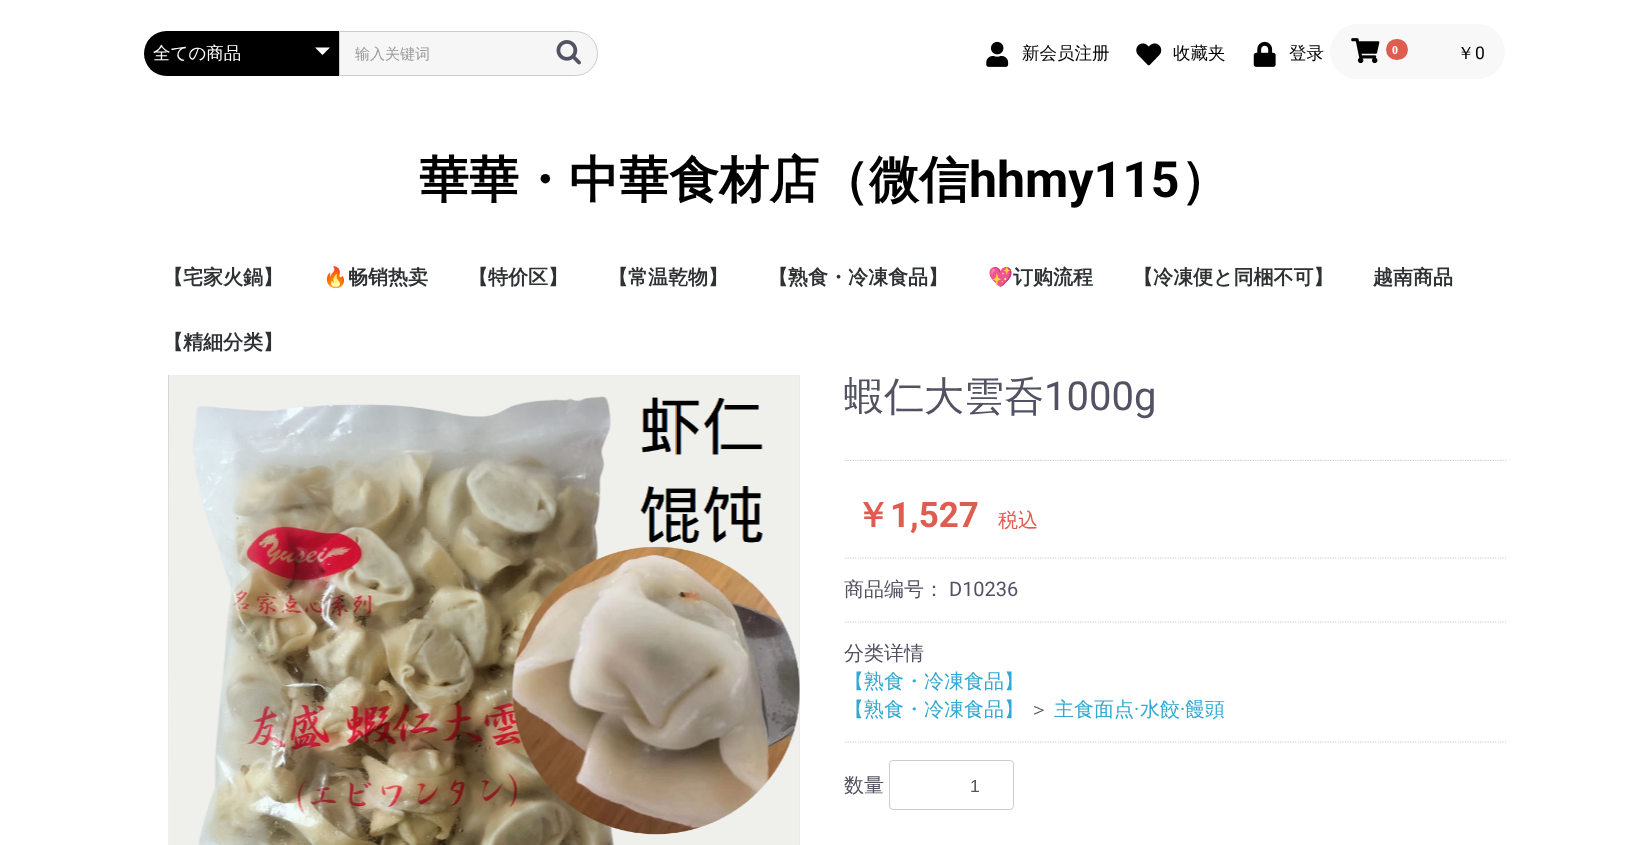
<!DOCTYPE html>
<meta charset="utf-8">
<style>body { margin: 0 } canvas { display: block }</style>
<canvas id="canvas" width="1648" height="845"></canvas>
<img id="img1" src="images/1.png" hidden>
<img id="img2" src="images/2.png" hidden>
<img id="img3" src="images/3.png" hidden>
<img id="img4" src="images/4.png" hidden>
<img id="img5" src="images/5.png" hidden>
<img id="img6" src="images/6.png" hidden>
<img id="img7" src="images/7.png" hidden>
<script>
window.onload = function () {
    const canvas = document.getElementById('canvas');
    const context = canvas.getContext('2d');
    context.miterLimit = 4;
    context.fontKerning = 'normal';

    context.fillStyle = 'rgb(255, 255, 255)';
    context.fillRect(0, 0, 1648, 845);
    context.fillStyle = 'rgb(0, 0, 0)';
    context.beginPath();
    context.roundRect(144, 31, 195, 45, [22.5, 0, 0, 22.5]);
    context.fill();
    context.fillStyle = 'rgb(255, 255, 255)';
    context.beginPath();
    context.moveTo(315, 47.5);
    context.lineTo(330, 47.5);
    context.lineTo(322.5, 55);
    context.closePath();
    context.fill();
    context.fillStyle = 'rgb(246, 246, 246)';
    context.beginPath();
    context.roundRect(339.5, 31.5, 258, 44, [0, 22, 22, 0]);
    context.fill();
    context.strokeStyle = 'rgb(204, 204, 204)';
    context.stroke();
    context.drawImage(document.getElementById('img1'), 556, 40, 25, 25);
    context.drawImage(document.getElementById('img2'), 986, 41, 23, 26);
    context.drawImage(document.getElementById('img3'), 1136, 43, 26, 23);
    context.drawImage(document.getElementById('img4'), 1253, 41, 23, 26);
    context.fillStyle = 'rgb(248, 248, 248)';
    context.beginPath();
    context.roundRect(1330, 24, 175, 55, 27.5);
    context.fill();
    context.drawImage(document.getElementById('img5'), 1351, 38, 29, 26);
    context.fillStyle = 'rgb(222, 93, 80)';
    context.beginPath();
    context.roundRect(1386, 39, 22, 21, 10.5);
    context.fill();
    context.drawImage(document.getElementById('img6'), 168, 375, 2, 470);
    context.drawImage(document.getElementById('img7'), 169, 375, 631, 470);
    context.fillStyle = 'rgba(202, 197, 175, 0.19)';
    context.fillRect(799, 375, 1, 470);
    context.beginPath();
    context.moveTo(845, 460.5);
    context.lineTo(1506, 460.5);
    context.lineWidth = 1.2;
    context.setLineDash([1.25, 1.25]);
    context.stroke();
    context.beginPath();
    context.moveTo(845, 558);
    context.lineTo(1506, 558);
    context.stroke();
    context.beginPath();
    context.moveTo(845, 622);
    context.lineTo(1506, 622);
    context.stroke();
    context.beginPath();
    context.moveTo(845, 742);
    context.lineTo(1506, 742);
    context.stroke();
    context.beginPath();
    context.roundRect(889.5, 760.5, 124, 49, 3.5);
    context.lineWidth = 1;
    context.setLineDash([]);
    context.stroke();
    context.font = '500 17.5px WenQuanYi Zen Hei';
    context.fillStyle = 'rgb(255, 255, 255)';
    context.fillText('全ての商品', 153, 59);
    context.font = '500 15px WenQuanYi Zen Hei';
    context.fillStyle = 'rgb(153, 153, 153)';
    context.fillText('输入关键词', 355, 59);
    context.font = '500 17.5px WenQuanYi Zen Hei';
    context.fillStyle = 'rgb(0, 0, 0)';
    context.fillText('新会员注册', 1022, 59);
    context.fillText('收藏夹', 1173, 59);
    context.fillText('登录', 1289, 59);
    context.font = 'bold 12px Liberation Serif';
    context.fillStyle = 'rgb(255, 255, 255)';
    context.fillText('0', 1392, 54);
    context.font = '500 17.5px WenQuanYi Zen Hei';
    context.fillStyle = 'rgb(0, 0, 0)';
    context.fillText('￥', 1457, 59);
    context.font = '17.5px Roboto';
    context.fillText('0', 1475, 59);
    context.font = 'bold 50px WenQuanYi Zen Hei';
    context.fillText('華華・中華食材店（微信', 419, 197);
    context.font = 'bold 50px Roboto';
    context.fillText('hhmy115', 969, 197);
    context.font = 'bold 50px WenQuanYi Zen Hei';
    context.fillText('）', 1180, 197);
    context.font = 'bold 20px WenQuanYi Zen Hei';
    context.fillStyle = 'rgb(46, 50, 51)';
    context.fillText('【宅家火鍋】', 163, 284);
    context.font = 'bold 20px Noto Color Emoji';
    context.fillText('🔥', 323, 284);
    context.font = 'bold 20px WenQuanYi Zen Hei';
    context.fillText('畅销热卖', 348, 284);
    context.fillText('【特价区】', 468, 284);
    context.fillText('【常温乾物】', 608, 284);
    context.fillText('【熟食・冷凍食品】', 768, 284);
    context.font = 'bold 20px Noto Color Emoji';
    context.fillText('💖', 988, 284);
    context.font = 'bold 20px WenQuanYi Zen Hei';
    context.fillText('订购流程', 1013, 284);
    context.fillText('【冷凍便と同梱不可】', 1133, 284);
    context.fillText('越南商品', 1373, 284);
    context.fillText('【精細分类】', 163, 349);
    context.font = '500 40px WenQuanYi Zen Hei';
    context.fillStyle = 'rgb(82, 82, 99)';
    context.fillText('蝦仁大雲呑', 844, 410);
    context.font = '40px Roboto';
    context.fillText('1000g', 1044, 410);
    context.font = 'bold 35px WenQuanYi Zen Hei';
    context.fillStyle = 'rgb(222, 93, 80)';
    context.fillText('￥', 855, 527);
    context.font = 'bold 35px Roboto';
    context.fillText('1,527', 890, 527);
    context.font = '500 20px WenQuanYi Zen Hei';
    context.fillText('税込', 998, 527);
    context.fillStyle = 'rgb(82, 82, 99)';
    context.fillText('商品编号：', 844, 596);
    context.font = '20px Roboto';
    context.fillText('D10236', 949, 596);
    context.font = '500 20px WenQuanYi Zen Hei';
    context.fillText('分类详情', 844, 660);
    context.fillStyle = 'rgb(51, 168, 208)';
    context.fillText('【熟食・冷凍食品】', 844, 688);
    context.fillText('【熟食・冷凍食品】', 844, 716);
    context.fillStyle = 'rgb(82, 82, 99)';
    context.fillText('＞', 1029, 716);
    context.fillStyle = 'rgb(51, 168, 208)';
    context.fillText('主食面点', 1054, 716);
    context.font = '20px Roboto';
    context.fillText('·', 1134, 716);
    context.font = '500 20px WenQuanYi Zen Hei';
    context.fillText('水餃', 1140, 716);
    context.font = '20px Roboto';
    context.fillText('·', 1180, 716);
    context.font = '500 20px WenQuanYi Zen Hei';
    context.fillText('饅頭', 1185, 716);
    context.fillStyle = 'rgb(82, 82, 99)';
    context.fillText('数量', 844, 792);
    context.font = '17.5px Liberation Sans';
    context.fillStyle = 'rgb(85, 85, 85)';
    context.fillText('1', 970, 792);
};
</script>
